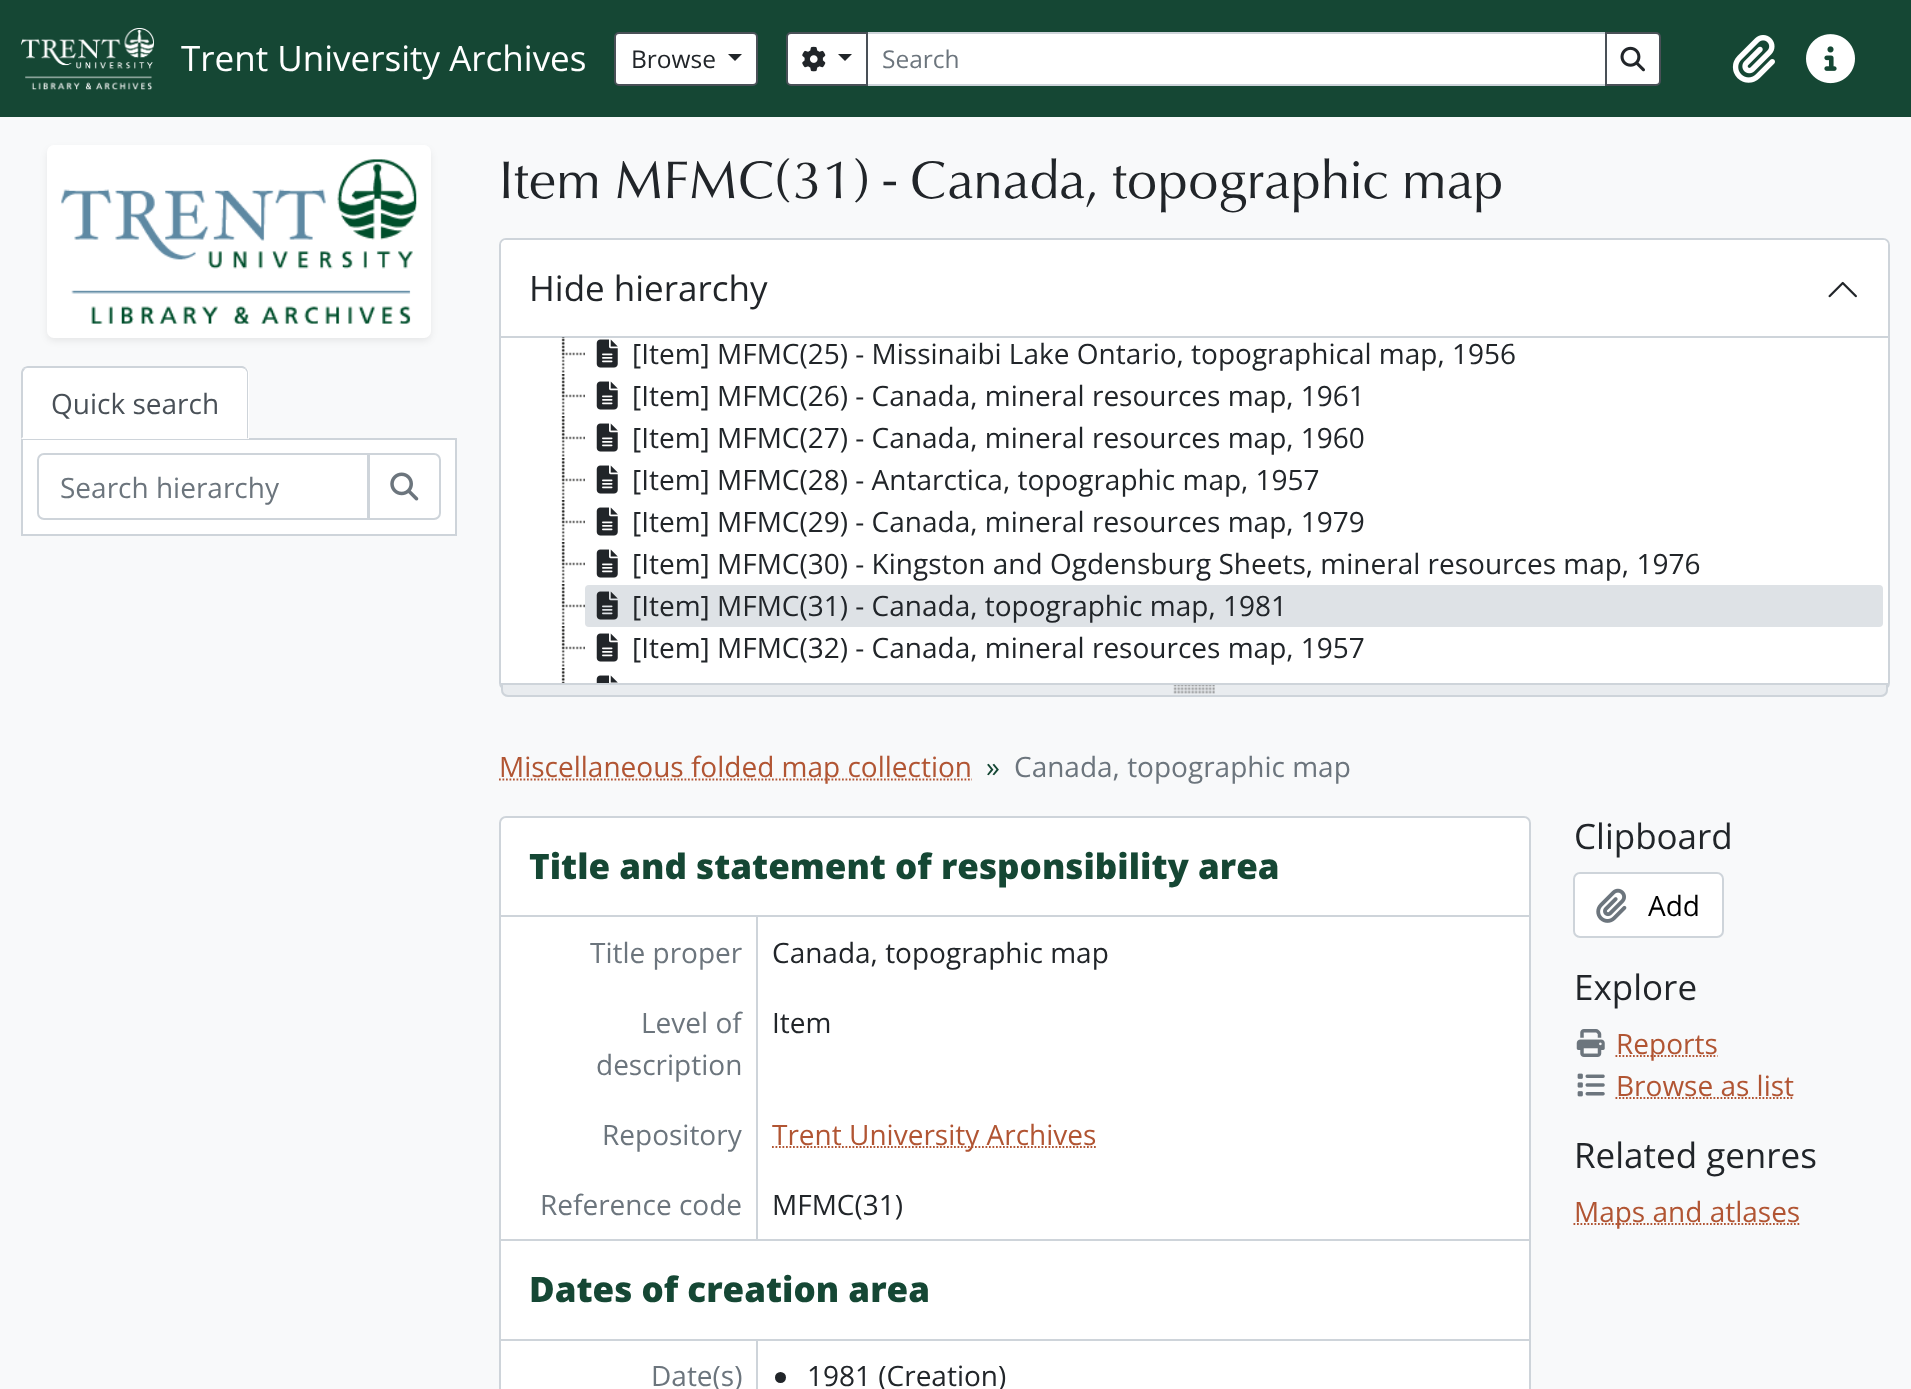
<!DOCTYPE html>
<meta charset="utf-8">
<style>body { margin: 0 } canvas { display: block }</style>
<canvas id="canvas" width="1911" height="1389"></canvas>
<img id="img1" src="images/1.png" hidden>
<img id="img2" src="images/2.png" hidden>
<img id="img3" src="images/3.png" hidden>
<img id="img4" src="images/4.png" hidden>
<img id="img5" src="images/5.png" hidden>
<img id="img6" src="images/6.png" hidden>
<img id="img7" src="images/7.png" hidden>
<img id="img8" src="images/8.png" hidden>
<img id="img9" src="images/9.png" hidden>
<img id="img10" src="images/10.png" hidden>
<img id="img11" src="images/11.png" hidden>
<img id="img12" src="images/12.png" hidden>
<img id="img13" src="images/13.png" hidden>
<img id="img14" src="images/14.png" hidden>
<img id="img15" src="images/15.png" hidden>
<img id="img16" src="images/16.png" hidden>
<img id="img17" src="images/17.png" hidden>
<img id="img18" src="images/18.png" hidden>
<img id="img19" src="images/19.png" hidden>
<img id="img20" src="images/20.png" hidden>
<img id="img21" src="images/21.png" hidden>
<script>
window.onload = function () {
    const canvas = document.getElementById('canvas');
    const context = canvas.getContext('2d');
    context.miterLimit = 4;
    context.fontKerning = 'normal';

    context.fillStyle = 'rgb(248, 249, 250)';
    context.fillRect(0, 0, 1911, 1389);
    context.fillStyle = 'rgb(21, 71, 52)';
    context.fillRect(0, 0, 1911, 117);
    context.drawImage(document.getElementById('img1'), 21, 28, 133, 62);
    context.fillStyle = 'rgb(255, 255, 255)';
    context.beginPath();
    context.roundRect(615, 33, 142, 52, 4);
    context.fill();
    context.strokeStyle = 'rgb(73, 80, 87)';
    context.lineWidth = 2;
    context.stroke();
    context.fillStyle = 'rgb(33, 37, 41)';
    context.beginPath();
    context.moveTo(728, 54);
    context.lineTo(742, 54);
    context.lineTo(735, 61);
    context.closePath();
    context.fill();
    context.fillStyle = 'rgb(255, 255, 255)';
    context.beginPath();
    context.rect(867, 33, 739, 52);
    context.fill();
    context.strokeStyle = 'rgb(206, 212, 218)';
    context.stroke();
    context.beginPath();
    context.roundRect(787, 33, 80, 52, [4, 0, 0, 4]);
    context.fill();
    context.strokeStyle = 'rgb(73, 80, 87)';
    context.stroke();
    context.drawImage(document.getElementById('img2'), 802, 46, 24, 26);
    context.fillStyle = 'rgb(33, 37, 41)';
    context.beginPath();
    context.moveTo(838, 54);
    context.lineTo(852, 54);
    context.lineTo(845, 61);
    context.closePath();
    context.fill();
    context.fillStyle = 'rgb(255, 255, 255)';
    context.beginPath();
    context.roundRect(1606, 33, 54, 52, [0, 4, 4, 0]);
    context.fill();
    context.stroke();
    context.drawImage(document.getElementById('img3'), 1620, 46, 25, 26);
    context.drawImage(document.getElementById('img4'), 1732, 35, 43, 48);
    context.drawImage(document.getElementById('img5'), 1806, 34, 49, 50);
    context.fillStyle = 'rgba(0, 0, 0, 0.07)';
    context.filter = 'blur(3.5px)';
    context.beginPath();
    context.roundRect(47, 149, 384, 192, 7);
    context.fill();
    context.filter = 'none';
    context.fillStyle = 'rgb(255, 255, 255)';
    context.beginPath();
    context.roundRect(47, 145, 384, 193, 7);
    context.fill();
    context.drawImage(document.getElementById('img6'), 61, 159, 356, 165);
    context.beginPath();
    context.rect(22, 439, 434, 96);
    context.fill();
    context.strokeStyle = 'rgb(206, 212, 218)';
    context.stroke();
    context.beginPath();
    context.roundRect(21, 366, 228, 73, [7, 7, 0, 0]);
    context.fill();
    context.fillStyle = 'rgb(206, 212, 218)';
    context.beginPath();
    context.moveTo(28, 366);
    context.bezierCurveTo(26, 366, 24, 367, 23, 368);
    context.lineTo(25, 369);
    context.bezierCurveTo(25, 368, 27, 368, 28, 368);
    context.lineTo(242, 368);
    context.lineTo(245, 369);
    context.lineTo(246, 368);
    context.bezierCurveTo(245, 367, 244, 366, 242, 366);
    context.closePath();
    context.fill();
    context.beginPath();
    context.moveTo(248, 439);
    context.lineTo(248, 373);
    context.bezierCurveTo(248, 371, 247, 369, 246, 368);
    context.lineTo(245, 369);
    context.lineTo(247, 372);
    context.lineTo(247, 438);
    context.closePath();
    context.fill();
    context.fillStyle = 'rgb(255, 255, 255)';
    context.beginPath();
    context.moveTo(248, 439);
    context.lineTo(21, 439);
    context.lineTo(23, 437);
    context.lineTo(23, 438);
    context.lineTo(247, 438);
    context.closePath();
    context.fill();
    context.fillStyle = 'rgb(206, 212, 218)';
    context.beginPath();
    context.moveTo(21, 373);
    context.lineTo(21, 439);
    context.lineTo(23, 437);
    context.lineTo(23, 372);
    context.lineTo(25, 369);
    context.lineTo(23, 368);
    context.bezierCurveTo(22, 369, 21, 371, 21, 373);
    context.closePath();
    context.fill();
    context.beginPath();
    context.roundRect(38, 454, 330, 65, [6, 0, 0, 6]);
    context.stroke();
    context.fillStyle = 'rgb(255, 255, 255)';
    context.beginPath();
    context.roundRect(369, 454, 71, 65, [0, 6, 6, 0]);
    context.fill();
    context.stroke();
    context.drawImage(document.getElementById('img7'), 390, 472, 29, 29);
    context.beginPath();
    context.roundRect(500, 239, 1389, 450, 6);
    context.fill();
    context.stroke();
    context.beginPath();
    context.roundRect(501, 240, 1387, 98, [5, 5, 0, 0]);
    context.fill();
    context.fillStyle = 'rgb(206, 212, 218)';
    context.fillRect(501, 336, 1387, 2);
    context.drawImage(document.getElementById('img8'), 1828, 281, 29, 17);
    context.drawImage(document.getElementById('img9'), 561, 337, 4, 36);
    context.drawImage(document.getElementById('img10'), 561, 337, 24, 19);
    context.drawImage(document.getElementById('img11'), 596, 339, 22, 29);
    context.drawImage(document.getElementById('img12'), 561, 374, 4, 41);
    context.drawImage(document.getElementById('img13'), 561, 374, 24, 24);
    context.drawImage(document.getElementById('img11'), 596, 381, 22, 29);
    context.drawImage(document.getElementById('img12'), 561, 416, 4, 41);
    context.drawImage(document.getElementById('img13'), 561, 416, 24, 24);
    context.drawImage(document.getElementById('img11'), 596, 423, 22, 29);
    context.drawImage(document.getElementById('img12'), 561, 458, 4, 41);
    context.drawImage(document.getElementById('img13'), 561, 458, 24, 24);
    context.drawImage(document.getElementById('img11'), 596, 465, 22, 29);
    context.drawImage(document.getElementById('img12'), 561, 500, 4, 41);
    context.drawImage(document.getElementById('img13'), 561, 500, 24, 24);
    context.drawImage(document.getElementById('img11'), 596, 507, 22, 29);
    context.drawImage(document.getElementById('img12'), 561, 542, 4, 41);
    context.drawImage(document.getElementById('img13'), 561, 542, 24, 24);
    context.drawImage(document.getElementById('img11'), 596, 549, 22, 29);
    context.drawImage(document.getElementById('img12'), 561, 584, 4, 41);
    context.drawImage(document.getElementById('img13'), 561, 584, 24, 24);
    context.fillStyle = 'rgb(222, 226, 230)';
    context.beginPath();
    context.roundRect(585, 585, 1298, 42, 4);
    context.fill();
    context.drawImage(document.getElementById('img14'), 596, 591, 22, 29);
    context.drawImage(document.getElementById('img12'), 561, 626, 4, 41);
    context.drawImage(document.getElementById('img13'), 561, 626, 24, 24);
    context.drawImage(document.getElementById('img11'), 596, 633, 22, 29);
    context.drawImage(document.getElementById('img15'), 561, 668, 4, 15);
    context.drawImage(document.getElementById('img16'), 561, 668, 4, 15);
    context.drawImage(document.getElementById('img17'), 596, 675, 22, 8);
    context.fillStyle = 'rgb(233, 236, 239)';
    context.beginPath();
    context.roundRect(501, 683, 1387, 14, [0, 0, 7, 7]);
    context.fill();
    context.drawImage(document.getElementById('img18'), 1173, 685, 42, 9);
    context.beginPath();
    context.roundRect(502, 684, 1385, 12, [0, 0, 6, 6]);
    context.stroke();
    context.beginPath();
    context.moveTo(499, 779.5);
    context.lineTo(972, 779.5);
    context.strokeStyle = 'rgb(177, 85, 51)';
    context.lineWidth = 1.8;
    context.setLineDash([1.75, 1.75]);
    context.stroke();
    context.fillStyle = 'rgb(255, 255, 255)';
    context.beginPath();
    context.roundRect(500, 817, 1030, 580, 6);
    context.fill();
    context.strokeStyle = 'rgb(206, 212, 218)';
    context.lineWidth = 2;
    context.setLineDash([]);
    context.stroke();
    context.fillStyle = 'rgb(206, 212, 218)';
    context.fillRect(501, 1239, 1029, 2);
    context.fillRect(501, 915, 1029, 2);
    context.fillRect(756, 917, 2, 322);
    context.beginPath();
    context.moveTo(772, 1147);
    context.lineTo(1096, 1147);
    context.strokeStyle = 'rgb(177, 85, 51)';
    context.lineWidth = 1.8;
    context.setLineDash([1.75, 1.75]);
    context.stroke();
    context.fillRect(501, 1339, 1029, 2);
    context.fillRect(756, 1341, 2, 48);
    context.fillStyle = 'rgb(33, 37, 41)';
    context.beginPath();
    context.arc(780.5, 1377.5, 5.5, 0, 2 * Math.PI);
    context.fill();
    context.fillStyle = 'rgb(255, 255, 255)';
    context.beginPath();
    context.roundRect(1574, 873, 149, 64, 6);
    context.fill();
    context.strokeStyle = 'rgb(206, 212, 218)';
    context.lineWidth = 2;
    context.setLineDash([]);
    context.stroke();
    context.drawImage(document.getElementById('img19'), 1596, 888, 31, 35);
    context.drawImage(document.getElementById('img20'), 1576, 1029, 29, 28);
    context.beginPath();
    context.moveTo(1615.5, 1056);
    context.lineTo(1717.5, 1056);
    context.strokeStyle = 'rgb(177, 85, 51)';
    context.lineWidth = 1.8;
    context.setLineDash([1.75, 1.75]);
    context.stroke();
    context.drawImage(document.getElementById('img21'), 1577, 1073, 28, 24);
    context.beginPath();
    context.moveTo(1615.5, 1098);
    context.lineTo(1794, 1098);
    context.stroke();
    context.beginPath();
    context.moveTo(1573.5, 1224);
    context.lineTo(1800, 1224);
    context.stroke();
    context.font = '35px Open Sans';
    context.fillText('Trent University Archives', 181, 71);
    context.font = '24.5px Open Sans';
    context.fillStyle = 'rgb(33, 37, 41)';
    context.fillText('Browse', 631, 68);
    context.fillStyle = 'rgb(108, 117, 125)';
    context.fillText('Search', 882, 68);
    context.font = '28px Open Sans';
    context.fillStyle = 'rgb(73, 80, 87)';
    context.fillText('Quick search', 51, 414);
    context.fillStyle = 'rgb(108, 117, 125)';
    context.fillText('Search hierarchy', 60, 498);
    context.font = '54.25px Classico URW';
    context.fillStyle = 'rgb(33, 37, 41)';
    context.fillText('Item MFMC(31) - Canada, topographic map', 499, 198);
    context.font = '35px Open Sans';
    context.fillText('Hide hierarchy', 529, 301);
    context.font = '28px Open Sans';
    context.fillText('[Item] MFMC(25) - Missinaibi Lake Ontario, topographical map, 1956', 632, 364);
    context.fillText('[Item] MFMC(26) - Canada, mineral resources map, 1961', 632, 406);
    context.fillText('[Item] MFMC(27) - Canada, mineral resources map, 1960', 632, 448);
    context.fillText('[Item] MFMC(28) - Antarctica, topographic map, 1957', 632, 490);
    context.fillText('[Item] MFMC(29) - Canada, mineral resources map, 1979', 632, 532);
    context.fillText('[Item] MFMC(30) - Kingston and Ogdensburg Sheets, mineral resources map, 1976', 632, 574);
    context.fillText('[Item] MFMC(31) - Canada, topographic map, 1981', 632, 616);
    context.fillText('[Item] MFMC(32) - Canada, mineral resources map, 1957', 632, 658);
    context.fillStyle = 'rgb(177, 85, 51)';
    context.fillText('Miscellaneous folded map collection', 499, 777);
    context.fillStyle = 'rgb(21, 71, 52)';
    context.fillText('»', 986, 777);
    context.fillStyle = 'rgb(108, 117, 125)';
    context.fillText('Canada, topographic map', 1014, 777);
    context.font = '800 35px Open Sans';
    context.fillStyle = 'rgb(21, 71, 52)';
    context.fillText('Title and statement of responsibility area', 529, 879);
    context.font = '28px Open Sans';
    context.fillStyle = 'rgb(108, 117, 125)';
    context.fillText('Title proper', 590, 963);
    context.fillStyle = 'rgb(33, 37, 41)';
    context.fillText('Canada, topographic map', 772, 963);
    context.fillStyle = 'rgb(108, 117, 125)';
    context.fillText('Level of', 641, 1033);
    context.fillText('description', 596, 1075);
    context.fillStyle = 'rgb(33, 37, 41)';
    context.fillText('Item', 772, 1033);
    context.fillStyle = 'rgb(108, 117, 125)';
    context.fillText('Repository', 602, 1145);
    context.fillStyle = 'rgb(177, 85, 51)';
    context.fillText('Trent University Archives', 772, 1145);
    context.fillStyle = 'rgb(108, 117, 125)';
    context.fillText('Reference code', 540, 1215);
    context.fillStyle = 'rgb(33, 37, 41)';
    context.fillText('MFMC(31)', 772, 1215);
    context.font = '800 35px Open Sans';
    context.fillStyle = 'rgb(21, 71, 52)';
    context.fillText('Dates of creation area', 529, 1302);
    context.font = '28px Open Sans';
    context.fillStyle = 'rgb(108, 117, 125)';
    context.fillText('Date(s)', 651, 1386);
    context.fillStyle = 'rgb(33, 37, 41)';
    context.fillText('1981 (Creation)', 807, 1386);
    context.font = '35px Open Sans';
    context.fillText('Clipboard', 1574, 849);
    context.font = '28px Open Sans';
    context.fillStyle = 'rgb(0, 0, 0)';
    context.fillText('Add', 1648, 916);
    context.font = '35px Open Sans';
    context.fillStyle = 'rgb(33, 37, 41)';
    context.fillText('Explore', 1574, 1000);
    context.font = '28px Open Sans';
    context.fillStyle = 'rgb(177, 85, 51)';
    context.fillText('Reports', 1616, 1054);
    context.fillText('Browse as list', 1616, 1096);
    context.font = '35px Open Sans';
    context.fillStyle = 'rgb(33, 37, 41)';
    context.fillText('Related genres', 1574, 1168);
    context.font = '28px Open Sans';
    context.fillStyle = 'rgb(177, 85, 51)';
    context.fillText('Maps and atlases', 1574, 1222);
};
</script>
